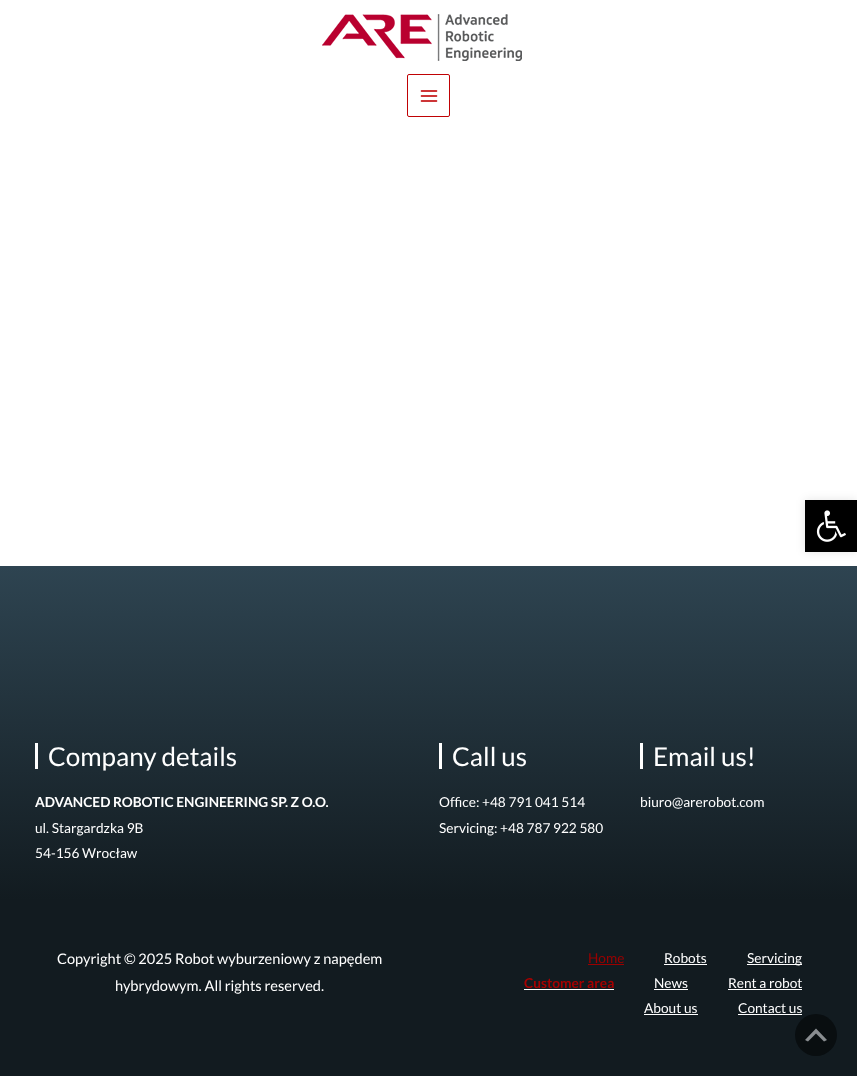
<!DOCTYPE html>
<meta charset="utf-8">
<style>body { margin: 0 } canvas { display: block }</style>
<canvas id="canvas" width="857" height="1076"></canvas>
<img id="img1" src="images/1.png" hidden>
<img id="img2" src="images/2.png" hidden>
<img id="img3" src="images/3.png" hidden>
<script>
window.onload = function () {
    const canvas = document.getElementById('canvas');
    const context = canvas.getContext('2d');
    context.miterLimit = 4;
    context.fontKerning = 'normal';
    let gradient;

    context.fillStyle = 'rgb(255, 255, 255)';
    context.fillRect(0, 0, 857, 1076);
    gradient = context.createLinearGradient(429, 566, 429, 900);
    gradient.addColorStop(0, 'rgb(46, 68, 81)');
    gradient.addColorStop(1, 'rgb(18, 27, 32)');
    context.fillStyle = gradient;
    context.fillRect(0, 566, 857, 334);
    context.fillStyle = 'rgba(0, 0, 0, 0.1)';
    context.filter = 'blur(5px)';
    context.beginPath();
    context.rect(805, 500, 52, 52);
    context.fill();
    context.filter = 'none';
    context.fillStyle = 'rgb(0, 0, 0)';
    context.fillRect(805, 500, 52, 52);
    context.drawImage(document.getElementById('img1'), 816, 510, 30, 32);
    context.drawImage(document.getElementById('img2'), 322, 14, 200, 47);
    context.beginPath();
    context.roundRect(407.5, 74.5, 42, 42, 1.5);
    context.strokeStyle = 'rgb(192, 2, 5)';
    context.stroke();
    context.drawImage(document.getElementById('img3'), 420, 90, 18, 12);
    context.fillStyle = 'rgb(255, 255, 255)';
    context.fillRect(35, 743, 3, 26);
    context.fillRect(439, 743, 3, 26);
    context.fillRect(640, 743, 3, 26);
    context.fillStyle = 'rgb(18, 27, 32)';
    context.fillRect(0, 900, 857, 176);
    context.fillStyle = 'rgb(155, 0, 0)';
    context.fillRect(588, 964, 36, 1);
    context.fillStyle = 'rgb(255, 255, 255)';
    context.fillRect(664, 964, 43, 1);
    context.fillRect(747, 964, 55, 1);
    context.fillRect(524, 989, 90, 1);
    context.fillRect(654, 989, 34, 1);
    context.fillRect(728, 989, 74, 1);
    context.fillRect(644, 1014, 54, 1);
    context.fillRect(738, 1014, 64, 1);
    context.fillStyle = 'rgb(9, 14, 16)';
    context.beginPath();
    context.arc(816, 1035, 21, 0, 2 * Math.PI);
    context.fill();
    context.fillStyle = 'rgb(137, 141, 144)';
    context.beginPath();
    context.moveTo(824, 1041.5);
    context.lineTo(816, 1033.5);
    context.lineTo(808, 1041.5);
    context.lineTo(805, 1040);
    context.lineTo(816, 1028.5);
    context.lineTo(827, 1040);
    context.closePath();
    context.fill();
    context.font = '26px Lato';
    context.fillStyle = 'rgb(255, 255, 255)';
    context.fillText('Company details', 48, 766);
    context.font = 'bold 13.7px Lato';
    context.fillText('ADVANCED ROBOTIC ENGINEERING SP. Z O.O.', 35, 807);
    context.font = '13.7px Lato';
    context.fillText('ul. Stargardzka 9B', 35, 833);
    context.fillText('54-156 Wrocław', 35, 858);
    context.font = '26px Lato';
    context.fillText('Call us', 452, 766);
    context.font = '13.7px Lato';
    context.fillText('Office: +48 791 041 514', 439, 807);
    context.fillText('Servicing: +48 787 922 580', 439, 833);
    context.font = '26px Lato';
    context.fillText('Email us!', 653, 766);
    context.font = '13.7px Lato';
    context.fillText('biuro@arerobot.com', 640, 807);
    context.font = '14.6px Lato';
    context.fillText('Copyright © 2025 Robot wyburzeniowy z napędem', 57, 964);
    context.fillText('hybrydowym. All rights reserved.', 115, 991);
    context.font = '13.7px Lato';
    context.fillStyle = 'rgb(155, 0, 0)';
    context.fillText('Home', 588, 963);
    context.fillStyle = 'rgb(255, 255, 255)';
    context.fillText('Robots', 664, 963);
    context.fillText('Servicing', 747, 963);
    context.font = 'bold 13.7px Lato';
    context.fillStyle = 'rgb(167, 0, 0)';
    context.fillText('Customer area', 524, 988);
    context.font = '13.7px Lato';
    context.fillStyle = 'rgb(255, 255, 255)';
    context.fillText('News', 654, 988);
    context.fillText('Rent a robot', 728, 988);
    context.fillText('About us', 644, 1013);
    context.fillText('Contact us', 738, 1013);
};
</script>
